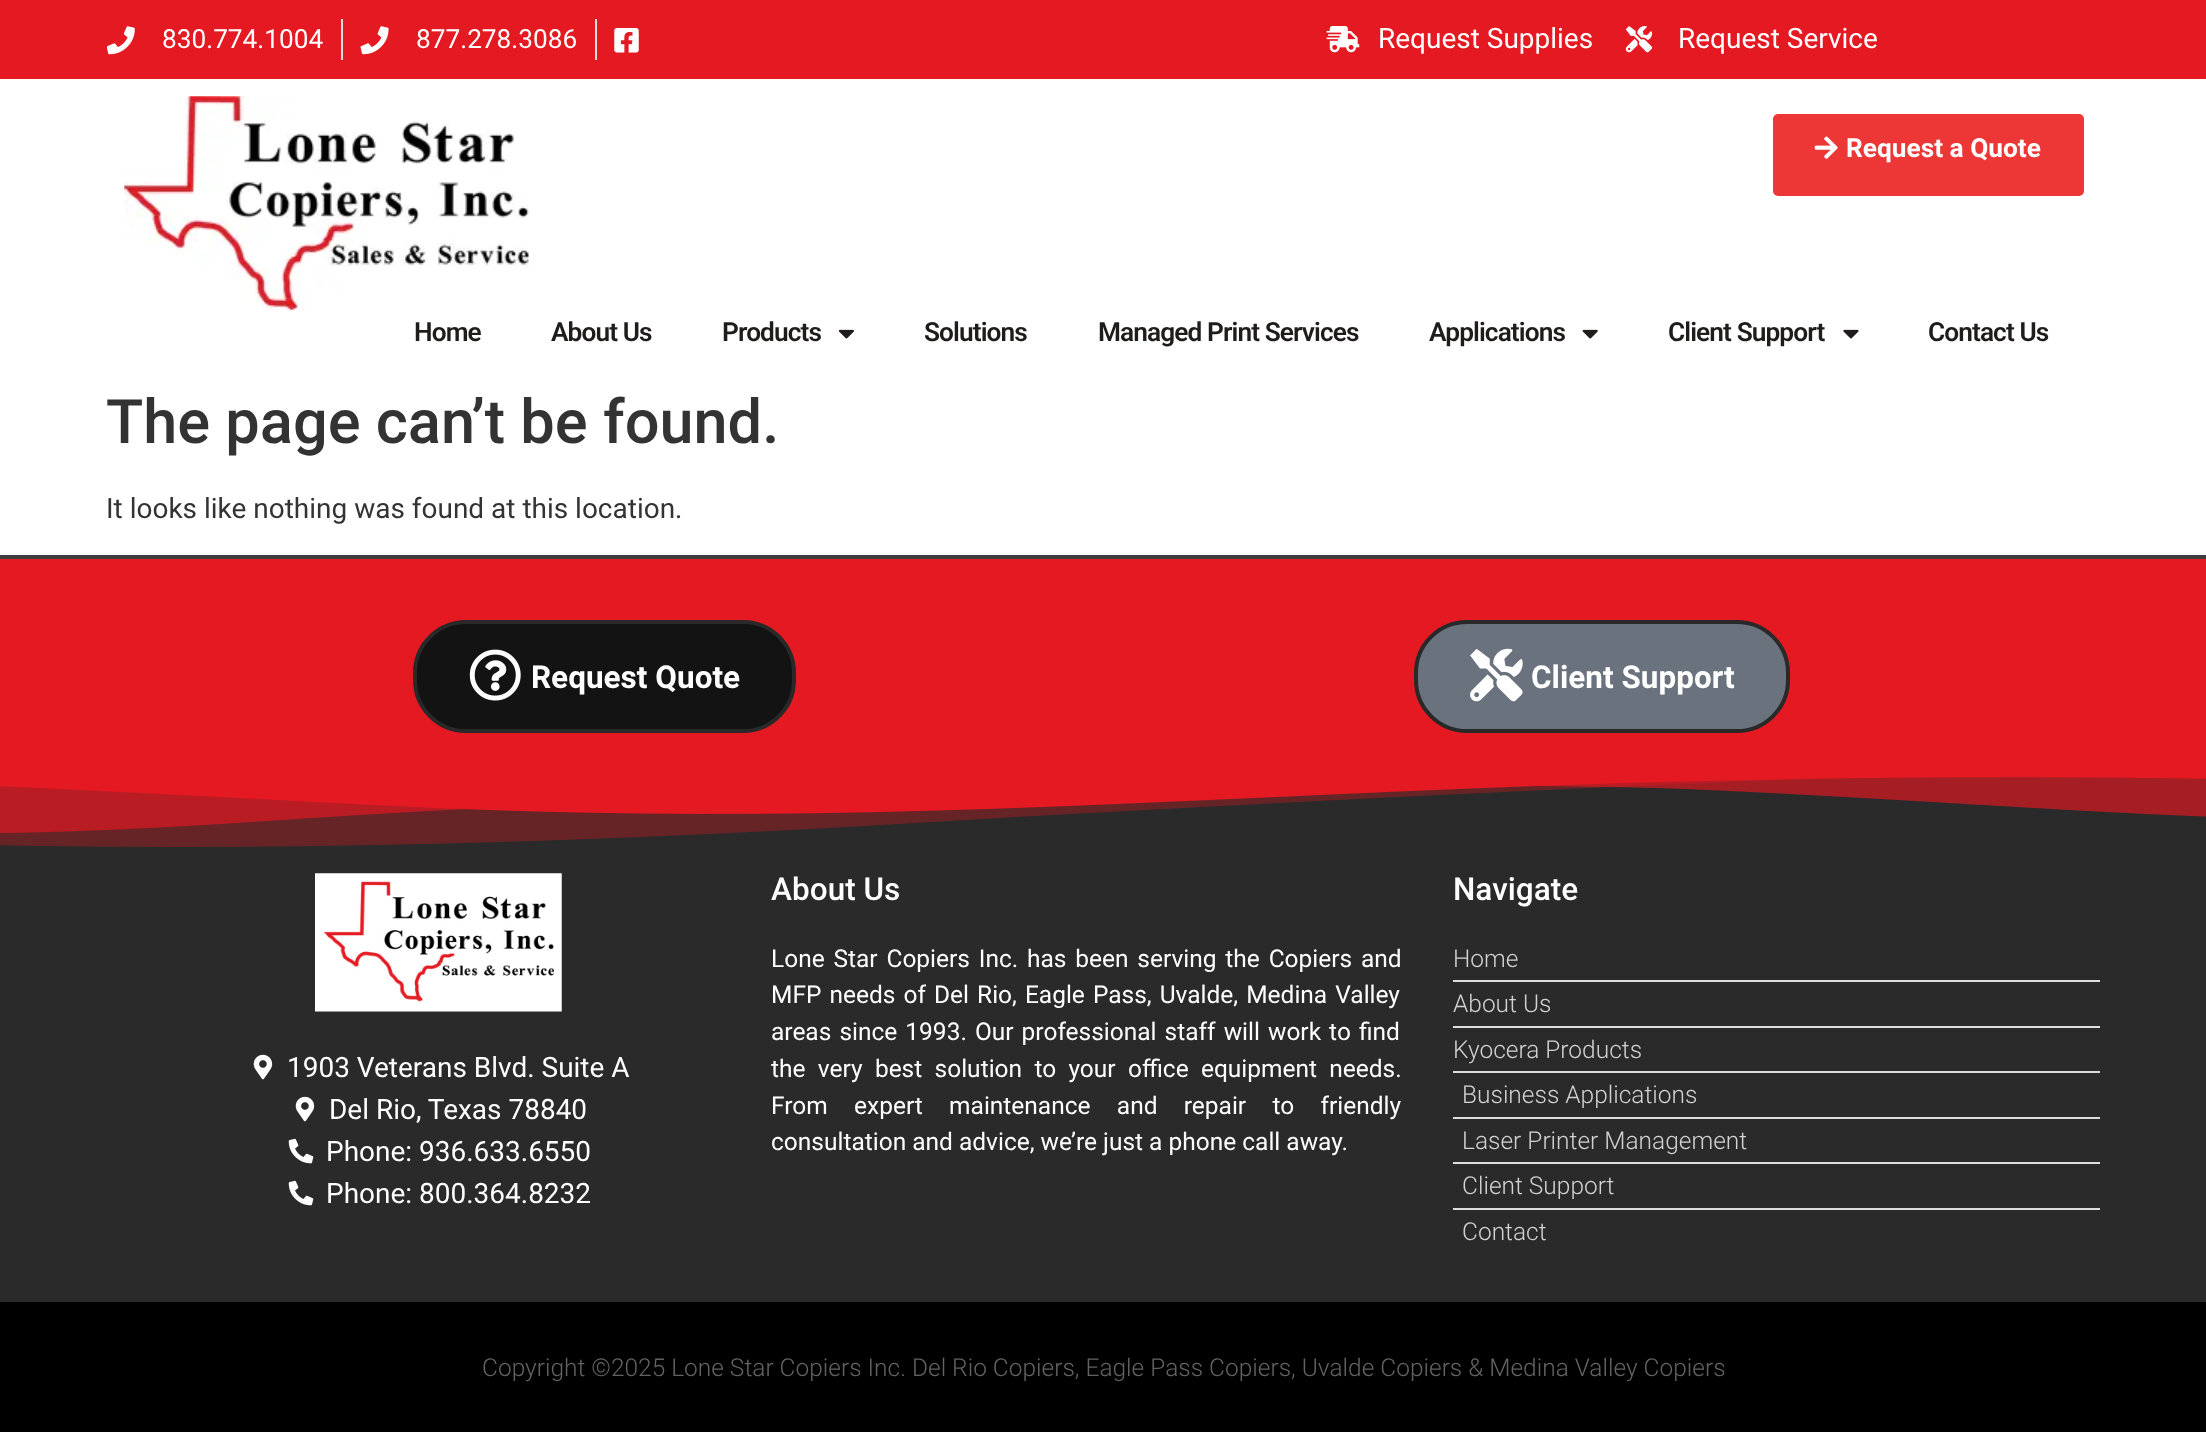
<!DOCTYPE html>
<meta charset="utf-8">
<style>body { margin: 0 } canvas { display: block }</style>
<canvas id="canvas" width="2206" height="1453"></canvas>
<img id="img1" src="images/1.png" hidden>
<img id="img2" src="images/2.png" hidden>
<img id="img3" src="images/3.png" hidden>
<img id="img4" src="images/4.png" hidden>
<img id="img5" src="images/5.png" hidden>
<img id="img6" src="images/6.png" hidden>
<img id="img7" src="images/7.png" hidden>
<img id="img8" src="images/8.png" hidden>
<img id="img9" src="images/9.png" hidden>
<img id="img10" src="images/10.png" hidden>
<img id="img11" src="images/11.png" hidden>
<img id="img12" src="images/12.png" hidden>
<img id="img13" src="images/13.png" hidden>
<img id="img14" src="images/14.png" hidden>
<img id="img15" src="images/15.png" hidden>
<img id="img16" src="images/16.png" hidden>
<script>
window.onload = function () {
    const canvas = document.getElementById('canvas');
    const context = canvas.getContext('2d');
    context.miterLimit = 4;
    context.fontKerning = 'normal';

    context.fillStyle = 'rgb(255, 255, 255)';
    context.fillRect(0, 0, 2206, 1453);
    context.fillStyle = 'rgb(229, 25, 34)';
    context.fillRect(0, 0, 2206, 79);
    context.drawImage(document.getElementById('img1'), 107, 26, 28, 29);
    context.fillStyle = 'rgb(221, 221, 221)';
    context.fillRect(341, 19, 2, 41);
    context.drawImage(document.getElementById('img2'), 360, 26, 29, 29);
    context.fillRect(595, 19, 2, 41);
    context.drawImage(document.getElementById('img3'), 614, 28, 25, 25);
    context.drawImage(document.getElementById('img4'), 1326, 26, 34, 27);
    context.drawImage(document.getElementById('img5'), 1625, 26, 28, 27);
    context.drawImage(document.getElementById('img6'), 124, 96, 405, 214);
    context.fillStyle = 'rgb(237, 54, 54)';
    context.beginPath();
    context.roundRect(1773, 114, 311, 82, 5);
    context.fill();
    context.drawImage(document.getElementById('img7'), 1814, 136, 24, 23);
    context.drawImage(document.getElementById('img8'), 838, 329, 16, 10);
    context.drawImage(document.getElementById('img9'), 1582, 329, 16, 10);
    context.drawImage(document.getElementById('img10'), 1843, 329, 16, 10);
    context.fillStyle = 'rgb(229, 25, 34)';
    context.fillRect(0, 559, 2206, 209);
    context.fillStyle = 'rgb(60, 60, 60)';
    context.fillRect(0, 555, 2206, 4);
    context.fillStyle = 'rgb(19, 19, 19)';
    context.beginPath();
    context.roundRect(415, 622, 379, 109, 51);
    context.fill();
    context.strokeStyle = 'rgb(41, 41, 41)';
    context.lineWidth = 4;
    context.stroke();
    context.drawImage(document.getElementById('img11'), 469, 649, 52, 52);
    context.fillStyle = 'rgb(105, 114, 125)';
    context.beginPath();
    context.roundRect(1416, 622, 372, 109, 51);
    context.fill();
    context.stroke();
    context.drawImage(document.getElementById('img12'), 1470, 648, 53, 54);
    context.fillStyle = 'rgb(42, 42, 42)';
    context.fillRect(0, 777, 2206, 525);
    context.drawImage(document.getElementById('img13'), 0, 768, 2206, 79);
    context.drawImage(document.getElementById('img14'), 315, 873, 247, 139);
    context.drawImage(document.getElementById('img15'), 253, 1054, 20, 26);
    context.drawImage(document.getElementById('img15'), 295, 1096, 20, 26);
    context.drawImage(document.getElementById('img16'), 288, 1138, 26, 26);
    context.drawImage(document.getElementById('img16'), 288, 1180, 26, 26);
    context.fillStyle = 'rgb(221, 221, 221)';
    context.fillRect(1453, 980, 647, 2);
    context.fillRect(1453, 1026, 647, 2);
    context.fillRect(1453, 1071, 647, 2);
    context.fillRect(1453, 1117, 647, 2);
    context.fillRect(1453, 1162, 647, 2);
    context.fillRect(1453, 1208, 647, 2);
    context.fillStyle = 'rgb(0, 0, 0)';
    context.fillRect(0, 1302, 2206, 130);
    context.font = '26.25px Roboto';
    context.fillStyle = 'rgb(255, 255, 255)';
    context.fillText('830.774.1004', 162, 48);
    context.fillText('877.278.3086', 416, 48);
    context.font = '28px Roboto';
    context.fillText('Request Supplies', 1378, 48);
    context.fillText('Request Service', 1678, 48);
    context.font = 'bold 26.25px Roboto';
    context.fillText('Request a Quote', 1846, 157);
    context.letterSpacing = '-0.9px';
    context.font = '600 26.25px Roboto';
    context.fillStyle = 'rgb(32, 28, 28)';
    context.fillText('Home', 414, 341);
    context.fillText('About Us', 551, 341);
    context.fillText('Products', 722, 341);
    context.fillText('Solutions', 924, 341);
    context.fillText('Managed Print Services', 1098, 341);
    context.fillText('Applications', 1429, 341);
    context.fillText('Client Support', 1668, 341);
    context.fillText('Contact Us', 1928, 341);
    context.letterSpacing = '0px';
    context.font = '500 61.25px Roboto';
    context.fillStyle = 'rgb(51, 51, 51)';
    context.fillText('The page can’t be found.', 106, 443);
    context.font = '28px Roboto';
    context.fillText('It looks like nothing was found at this location.', 106, 518);
    context.font = 'bold 31.5px Roboto';
    context.fillStyle = 'rgb(255, 255, 255)';
    context.fillText('Request Quote', 531, 688);
    context.fillText('Client Support', 1531, 688);
    context.font = '28px Roboto';
    context.fillText('1903 Veterans Blvd. Suite A', 287, 1077);
    context.fillText('Del Rio, Texas 78840', 329, 1119);
    context.fillText('Phone: 936.633.6550', 326, 1161);
    context.fillText('Phone: 800.364.8232', 326, 1203);
    context.font = '500 31.5px Roboto';
    context.fillText('About Us', 771, 900);
    context.wordSpacing = '2.75px';
    context.font = '24.5px Roboto';
    context.fillText('Lone Star Copiers Inc. has been serving the Copiers and', 771, 967);
    context.wordSpacing = '2px';
    context.fillText('MFP needs of Del Rio, Eagle Pass, Uvalde, Medina Valley', 771, 1003);
    context.fillText('areas since 1993. Our professional staff will work to find', 771, 1040);
    context.wordSpacing = '6.25px';
    context.fillText('the very best solution to your office equipment needs.', 771, 1077);
    context.wordSpacing = '20.25px';
    context.fillText('From expert maintenance and repair to friendly', 771, 1114);
    context.wordSpacing = '0px';
    context.fillText('consultation and advice, we’re just a phone call away.', 771, 1150);
    context.font = '500 31.5px Roboto';
    context.fillText('Navigate', 1453, 900);
    context.font = '300 24.5px Roboto';
    context.fillStyle = 'rgb(210, 210, 210)';
    context.fillText('Home', 1453, 967);
    context.fillText('About Us', 1453, 1012);
    context.fillText('Kyocera Products', 1453, 1058);
    context.fillText('Business Applications', 1462, 1103);
    context.fillText('Laser Printer Management', 1462, 1149);
    context.fillText('Client Support', 1462, 1194);
    context.fillText('Contact', 1462, 1240);
    context.fillStyle = 'rgb(99, 99, 99)';
    context.fillText('Copyright ©2025 Lone Star Copiers Inc. Del Rio Copiers, Eagle Pass Copiers, Uvalde Copiers & Medina Valley Copiers', 482, 1376);
};
</script>
